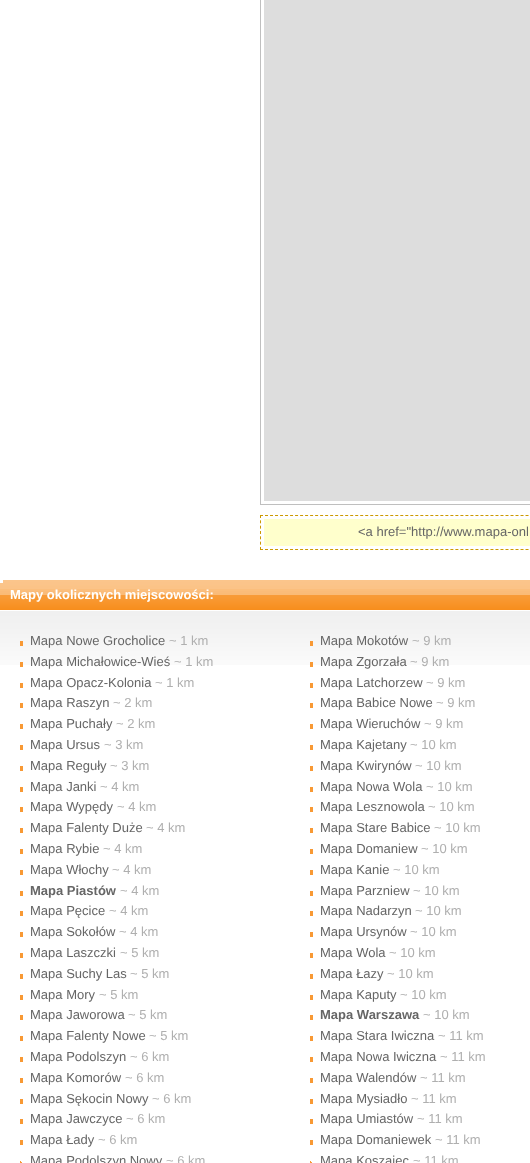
<!DOCTYPE html>
<meta charset="utf-8">
<style>body { margin: 0 } canvas { display: block }</style>
<canvas id="canvas" width="530" height="1163"></canvas>
<img id="img1" src="images/1.png" hidden>
<img id="img2" src="images/2.png" hidden>
<script>
window.onload = function () {
    const canvas = document.getElementById('canvas');
    const context = canvas.getContext('2d');
    context.miterLimit = 4;
    context.fontKerning = 'normal';

    context.fillStyle = 'rgb(255, 255, 255)';
    context.fillRect(0, 0, 530, 1163);
    context.strokeStyle = 'rgb(191, 191, 191)';
    context.strokeRect(260.5, -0.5, 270, 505);
    context.fillStyle = 'rgb(221, 221, 221)';
    context.fillRect(264, 0, 266, 501);
    context.beginPath();
    context.moveTo(260, 515.5);
    context.lineTo(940, 515.5);
    context.strokeStyle = 'rgb(204, 153, 0)';
    context.setLineDash([3, 2.01]);
    context.stroke();
    context.beginPath();
    context.moveTo(260, 549.5);
    context.lineTo(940, 549.5);
    context.stroke();
    context.beginPath();
    context.moveTo(260.5, 515);
    context.lineTo(260.5, 550);
    context.setLineDash([3, 2.33]);
    context.stroke();
    context.fillStyle = 'rgb(255, 255, 204)';
    context.fillRect(264, 519, 266, 27);
    context.drawImage(document.getElementById('img1'), 0, 580, 530, 85);
    context.fillStyle = 'rgb(255, 255, 255)';
    context.fillRect(0, 580, 3, 3);
    context.fillStyle = 'rgb(248, 153, 52)';
    context.fillRect(20, 641, 3, 5);
    context.fillRect(20, 662, 3, 5);
    context.fillRect(20, 683, 3, 5);
    context.fillRect(20, 703, 3, 5);
    context.fillRect(20, 724, 3, 5);
    context.fillRect(20, 745, 3, 5);
    context.fillRect(20, 766, 3, 5);
    context.fillRect(20, 787, 3, 5);
    context.fillRect(20, 807, 3, 5);
    context.fillRect(20, 828, 3, 5);
    context.fillRect(20, 849, 3, 5);
    context.fillRect(20, 870, 3, 5);
    context.fillRect(20, 891, 3, 5);
    context.fillRect(20, 911, 3, 5);
    context.fillRect(20, 932, 3, 5);
    context.fillRect(20, 953, 3, 5);
    context.fillRect(20, 974, 3, 5);
    context.fillRect(20, 995, 3, 5);
    context.fillRect(20, 1015, 3, 5);
    context.fillRect(20, 1036, 3, 5);
    context.fillRect(20, 1057, 3, 5);
    context.fillRect(20, 1078, 3, 5);
    context.fillRect(20, 1099, 3, 5);
    context.fillRect(20, 1119, 3, 5);
    context.fillRect(20, 1140, 3, 5);
    context.drawImage(document.getElementById('img2'), 20, 1161, 2, 2);
    context.fillRect(310, 641, 3, 5);
    context.fillRect(310, 662, 3, 5);
    context.fillRect(310, 683, 3, 5);
    context.fillRect(310, 703, 3, 5);
    context.fillRect(310, 724, 3, 5);
    context.fillRect(310, 745, 3, 5);
    context.fillRect(310, 766, 3, 5);
    context.fillRect(310, 787, 3, 5);
    context.fillRect(310, 807, 3, 5);
    context.fillRect(310, 828, 3, 5);
    context.fillRect(310, 849, 3, 5);
    context.fillRect(310, 870, 3, 5);
    context.fillRect(310, 891, 3, 5);
    context.fillRect(310, 911, 3, 5);
    context.fillRect(310, 932, 3, 5);
    context.fillRect(310, 953, 3, 5);
    context.fillRect(310, 974, 3, 5);
    context.fillRect(310, 995, 3, 5);
    context.fillRect(310, 1015, 3, 5);
    context.fillRect(310, 1036, 3, 5);
    context.fillRect(310, 1057, 3, 5);
    context.fillRect(310, 1078, 3, 5);
    context.fillRect(310, 1099, 3, 5);
    context.fillRect(310, 1119, 3, 5);
    context.fillRect(310, 1140, 3, 5);
    context.drawImage(document.getElementById('img2'), 310, 1161, 2, 2);
    context.font = '13px Liberation Sans';
    context.fillStyle = 'rgb(102, 102, 102)';
    context.fillText('<a href="http://www.mapa-onl', 358, 536);
    context.font = 'bold 13px Liberation Sans';
    context.fillStyle = 'rgb(255, 255, 255)';
    context.fillText('Mapy okolicznych miejscowości:', 10, 599);
    context.font = '13px Liberation Sans';
    context.fillStyle = 'rgb(102, 102, 102)';
    context.fillText('Mapa Nowe Grocholice', 30, 645);
    context.fillStyle = 'rgb(175, 175, 175)';
    context.fillText('~ 1 km', 169, 645);
    context.fillStyle = 'rgb(102, 102, 102)';
    context.fillText('Mapa Michałowice-Wieś', 30, 666);
    context.fillStyle = 'rgb(175, 175, 175)';
    context.fillText('~ 1 km', 174, 666);
    context.fillStyle = 'rgb(102, 102, 102)';
    context.fillText('Mapa Opacz-Kolonia', 30, 687);
    context.fillStyle = 'rgb(175, 175, 175)';
    context.fillText('~ 1 km', 155, 687);
    context.fillStyle = 'rgb(102, 102, 102)';
    context.fillText('Mapa Raszyn', 30, 707);
    context.fillStyle = 'rgb(175, 175, 175)';
    context.fillText('~ 2 km', 113, 707);
    context.fillStyle = 'rgb(102, 102, 102)';
    context.fillText('Mapa Puchały', 30, 728);
    context.fillStyle = 'rgb(175, 175, 175)';
    context.fillText('~ 2 km', 116, 728);
    context.fillStyle = 'rgb(102, 102, 102)';
    context.fillText('Mapa Ursus', 30, 749);
    context.fillStyle = 'rgb(175, 175, 175)';
    context.fillText('~ 3 km', 104, 749);
    context.fillStyle = 'rgb(102, 102, 102)';
    context.fillText('Mapa Reguły', 30, 770);
    context.fillStyle = 'rgb(175, 175, 175)';
    context.fillText('~ 3 km', 110, 770);
    context.fillStyle = 'rgb(102, 102, 102)';
    context.fillText('Mapa Janki', 30, 791);
    context.fillStyle = 'rgb(175, 175, 175)';
    context.fillText('~ 4 km', 100, 791);
    context.fillStyle = 'rgb(102, 102, 102)';
    context.fillText('Mapa Wypędy', 30, 811);
    context.fillStyle = 'rgb(175, 175, 175)';
    context.fillText('~ 4 km', 117, 811);
    context.fillStyle = 'rgb(102, 102, 102)';
    context.fillText('Mapa Falenty Duże', 30, 832);
    context.fillStyle = 'rgb(175, 175, 175)';
    context.fillText('~ 4 km', 146, 832);
    context.fillStyle = 'rgb(102, 102, 102)';
    context.fillText('Mapa Rybie', 30, 853);
    context.fillStyle = 'rgb(175, 175, 175)';
    context.fillText('~ 4 km', 103, 853);
    context.fillStyle = 'rgb(102, 102, 102)';
    context.fillText('Mapa Włochy', 30, 874);
    context.fillStyle = 'rgb(175, 175, 175)';
    context.fillText('~ 4 km', 112, 874);
    context.font = 'bold 13px Liberation Sans';
    context.fillStyle = 'rgb(102, 102, 102)';
    context.fillText('Mapa Piastów', 30, 895);
    context.font = '13px Liberation Sans';
    context.fillStyle = 'rgb(175, 175, 175)';
    context.fillText('~ 4 km', 120, 895);
    context.fillStyle = 'rgb(102, 102, 102)';
    context.fillText('Mapa Pęcice', 30, 915);
    context.fillStyle = 'rgb(175, 175, 175)';
    context.fillText('~ 4 km', 109, 915);
    context.fillStyle = 'rgb(102, 102, 102)';
    context.fillText('Mapa Sokołów', 30, 936);
    context.fillStyle = 'rgb(175, 175, 175)';
    context.fillText('~ 4 km', 119, 936);
    context.fillStyle = 'rgb(102, 102, 102)';
    context.fillText('Mapa Laszczki', 30, 957);
    context.fillStyle = 'rgb(175, 175, 175)';
    context.fillText('~ 5 km', 120, 957);
    context.fillStyle = 'rgb(102, 102, 102)';
    context.fillText('Mapa Suchy Las', 30, 978);
    context.fillStyle = 'rgb(175, 175, 175)';
    context.fillText('~ 5 km', 130, 978);
    context.fillStyle = 'rgb(102, 102, 102)';
    context.fillText('Mapa Mory', 30, 999);
    context.fillStyle = 'rgb(175, 175, 175)';
    context.fillText('~ 5 km', 99, 999);
    context.fillStyle = 'rgb(102, 102, 102)';
    context.fillText('Mapa Jaworowa', 30, 1019);
    context.fillStyle = 'rgb(175, 175, 175)';
    context.fillText('~ 5 km', 128, 1019);
    context.fillStyle = 'rgb(102, 102, 102)';
    context.fillText('Mapa Falenty Nowe', 30, 1040);
    context.fillStyle = 'rgb(175, 175, 175)';
    context.fillText('~ 5 km', 149, 1040);
    context.fillStyle = 'rgb(102, 102, 102)';
    context.fillText('Mapa Podolszyn', 30, 1061);
    context.fillStyle = 'rgb(175, 175, 175)';
    context.fillText('~ 6 km', 130, 1061);
    context.fillStyle = 'rgb(102, 102, 102)';
    context.fillText('Mapa Komorów', 30, 1082);
    context.fillStyle = 'rgb(175, 175, 175)';
    context.fillText('~ 6 km', 125, 1082);
    context.fillStyle = 'rgb(102, 102, 102)';
    context.fillText('Mapa Sękocin Nowy', 30, 1103);
    context.fillStyle = 'rgb(175, 175, 175)';
    context.fillText('~ 6 km', 152, 1103);
    context.fillStyle = 'rgb(102, 102, 102)';
    context.fillText('Mapa Jawczyce', 30, 1123);
    context.fillStyle = 'rgb(175, 175, 175)';
    context.fillText('~ 6 km', 126, 1123);
    context.fillStyle = 'rgb(102, 102, 102)';
    context.fillText('Mapa Łady', 30, 1144);
    context.fillStyle = 'rgb(175, 175, 175)';
    context.fillText('~ 6 km', 98, 1144);
    context.fillStyle = 'rgb(102, 102, 102)';
    context.fillText('Mapa Podolszyn Nowy', 30, 1165);
    context.fillStyle = 'rgb(175, 175, 175)';
    context.fillText('~ 6 km', 166, 1165);
    context.fillStyle = 'rgb(102, 102, 102)';
    context.fillText('Mapa Mokotów', 320, 645);
    context.fillStyle = 'rgb(175, 175, 175)';
    context.fillText('~ 9 km', 412, 645);
    context.fillStyle = 'rgb(102, 102, 102)';
    context.fillText('Mapa Zgorzała', 320, 666);
    context.fillStyle = 'rgb(175, 175, 175)';
    context.fillText('~ 9 km', 410, 666);
    context.fillStyle = 'rgb(102, 102, 102)';
    context.fillText('Mapa Latchorzew', 320, 687);
    context.fillStyle = 'rgb(175, 175, 175)';
    context.fillText('~ 9 km', 426, 687);
    context.fillStyle = 'rgb(102, 102, 102)';
    context.fillText('Mapa Babice Nowe', 320, 707);
    context.fillStyle = 'rgb(175, 175, 175)';
    context.fillText('~ 9 km', 436, 707);
    context.fillStyle = 'rgb(102, 102, 102)';
    context.fillText('Mapa Wieruchów', 320, 728);
    context.fillStyle = 'rgb(175, 175, 175)';
    context.fillText('~ 9 km', 424, 728);
    context.fillStyle = 'rgb(102, 102, 102)';
    context.fillText('Mapa Kajetany', 320, 749);
    context.fillStyle = 'rgb(175, 175, 175)';
    context.fillText('~ 10 km', 410, 749);
    context.fillStyle = 'rgb(102, 102, 102)';
    context.fillText('Mapa Kwirynów', 320, 770);
    context.fillStyle = 'rgb(175, 175, 175)';
    context.fillText('~ 10 km', 415, 770);
    context.fillStyle = 'rgb(102, 102, 102)';
    context.fillText('Mapa Nowa Wola', 320, 791);
    context.fillStyle = 'rgb(175, 175, 175)';
    context.fillText('~ 10 km', 426, 791);
    context.fillStyle = 'rgb(102, 102, 102)';
    context.fillText('Mapa Lesznowola', 320, 811);
    context.fillStyle = 'rgb(175, 175, 175)';
    context.fillText('~ 10 km', 428, 811);
    context.fillStyle = 'rgb(102, 102, 102)';
    context.fillText('Mapa Stare Babice', 320, 832);
    context.fillStyle = 'rgb(175, 175, 175)';
    context.fillText('~ 10 km', 434, 832);
    context.fillStyle = 'rgb(102, 102, 102)';
    context.fillText('Mapa Domaniew', 320, 853);
    context.fillStyle = 'rgb(175, 175, 175)';
    context.fillText('~ 10 km', 421, 853);
    context.fillStyle = 'rgb(102, 102, 102)';
    context.fillText('Mapa Kanie', 320, 874);
    context.fillStyle = 'rgb(175, 175, 175)';
    context.fillText('~ 10 km', 393, 874);
    context.fillStyle = 'rgb(102, 102, 102)';
    context.fillText('Mapa Parzniew', 320, 895);
    context.fillStyle = 'rgb(175, 175, 175)';
    context.fillText('~ 10 km', 413, 895);
    context.fillStyle = 'rgb(102, 102, 102)';
    context.fillText('Mapa Nadarzyn', 320, 915);
    context.fillStyle = 'rgb(175, 175, 175)';
    context.fillText('~ 10 km', 415, 915);
    context.fillStyle = 'rgb(102, 102, 102)';
    context.fillText('Mapa Ursynów', 320, 936);
    context.fillStyle = 'rgb(175, 175, 175)';
    context.fillText('~ 10 km', 410, 936);
    context.fillStyle = 'rgb(102, 102, 102)';
    context.fillText('Mapa Wola', 320, 957);
    context.fillStyle = 'rgb(175, 175, 175)';
    context.fillText('~ 10 km', 389, 957);
    context.fillStyle = 'rgb(102, 102, 102)';
    context.fillText('Mapa Łazy', 320, 978);
    context.fillStyle = 'rgb(175, 175, 175)';
    context.fillText('~ 10 km', 387, 978);
    context.fillStyle = 'rgb(102, 102, 102)';
    context.fillText('Mapa Kaputy', 320, 999);
    context.fillStyle = 'rgb(175, 175, 175)';
    context.fillText('~ 10 km', 400, 999);
    context.font = 'bold 13px Liberation Sans';
    context.fillStyle = 'rgb(102, 102, 102)';
    context.fillText('Mapa Warszawa', 320, 1019);
    context.font = '13px Liberation Sans';
    context.fillStyle = 'rgb(175, 175, 175)';
    context.fillText('~ 10 km', 423, 1019);
    context.fillStyle = 'rgb(102, 102, 102)';
    context.fillText('Mapa Stara Iwiczna', 320, 1040);
    context.fillStyle = 'rgb(175, 175, 175)';
    context.fillText('~ 11 km', 438, 1040);
    context.fillStyle = 'rgb(102, 102, 102)';
    context.fillText('Mapa Nowa Iwiczna', 320, 1061);
    context.fillStyle = 'rgb(175, 175, 175)';
    context.fillText('~ 11 km', 440, 1061);
    context.fillStyle = 'rgb(102, 102, 102)';
    context.fillText('Mapa Walendów', 320, 1082);
    context.fillStyle = 'rgb(175, 175, 175)';
    context.fillText('~ 11 km', 420, 1082);
    context.fillStyle = 'rgb(102, 102, 102)';
    context.fillText('Mapa Mysiadło', 320, 1103);
    context.fillStyle = 'rgb(175, 175, 175)';
    context.fillText('~ 11 km', 411, 1103);
    context.fillStyle = 'rgb(102, 102, 102)';
    context.fillText('Mapa Umiastów', 320, 1123);
    context.fillStyle = 'rgb(175, 175, 175)';
    context.fillText('~ 11 km', 417, 1123);
    context.fillStyle = 'rgb(102, 102, 102)';
    context.fillText('Mapa Domaniewek', 320, 1144);
    context.fillStyle = 'rgb(175, 175, 175)';
    context.fillText('~ 11 km', 435, 1144);
    context.fillStyle = 'rgb(102, 102, 102)';
    context.fillText('Mapa Koszajec', 320, 1165);
    context.fillStyle = 'rgb(175, 175, 175)';
    context.fillText('~ 11 km', 413, 1165);
};
</script>
